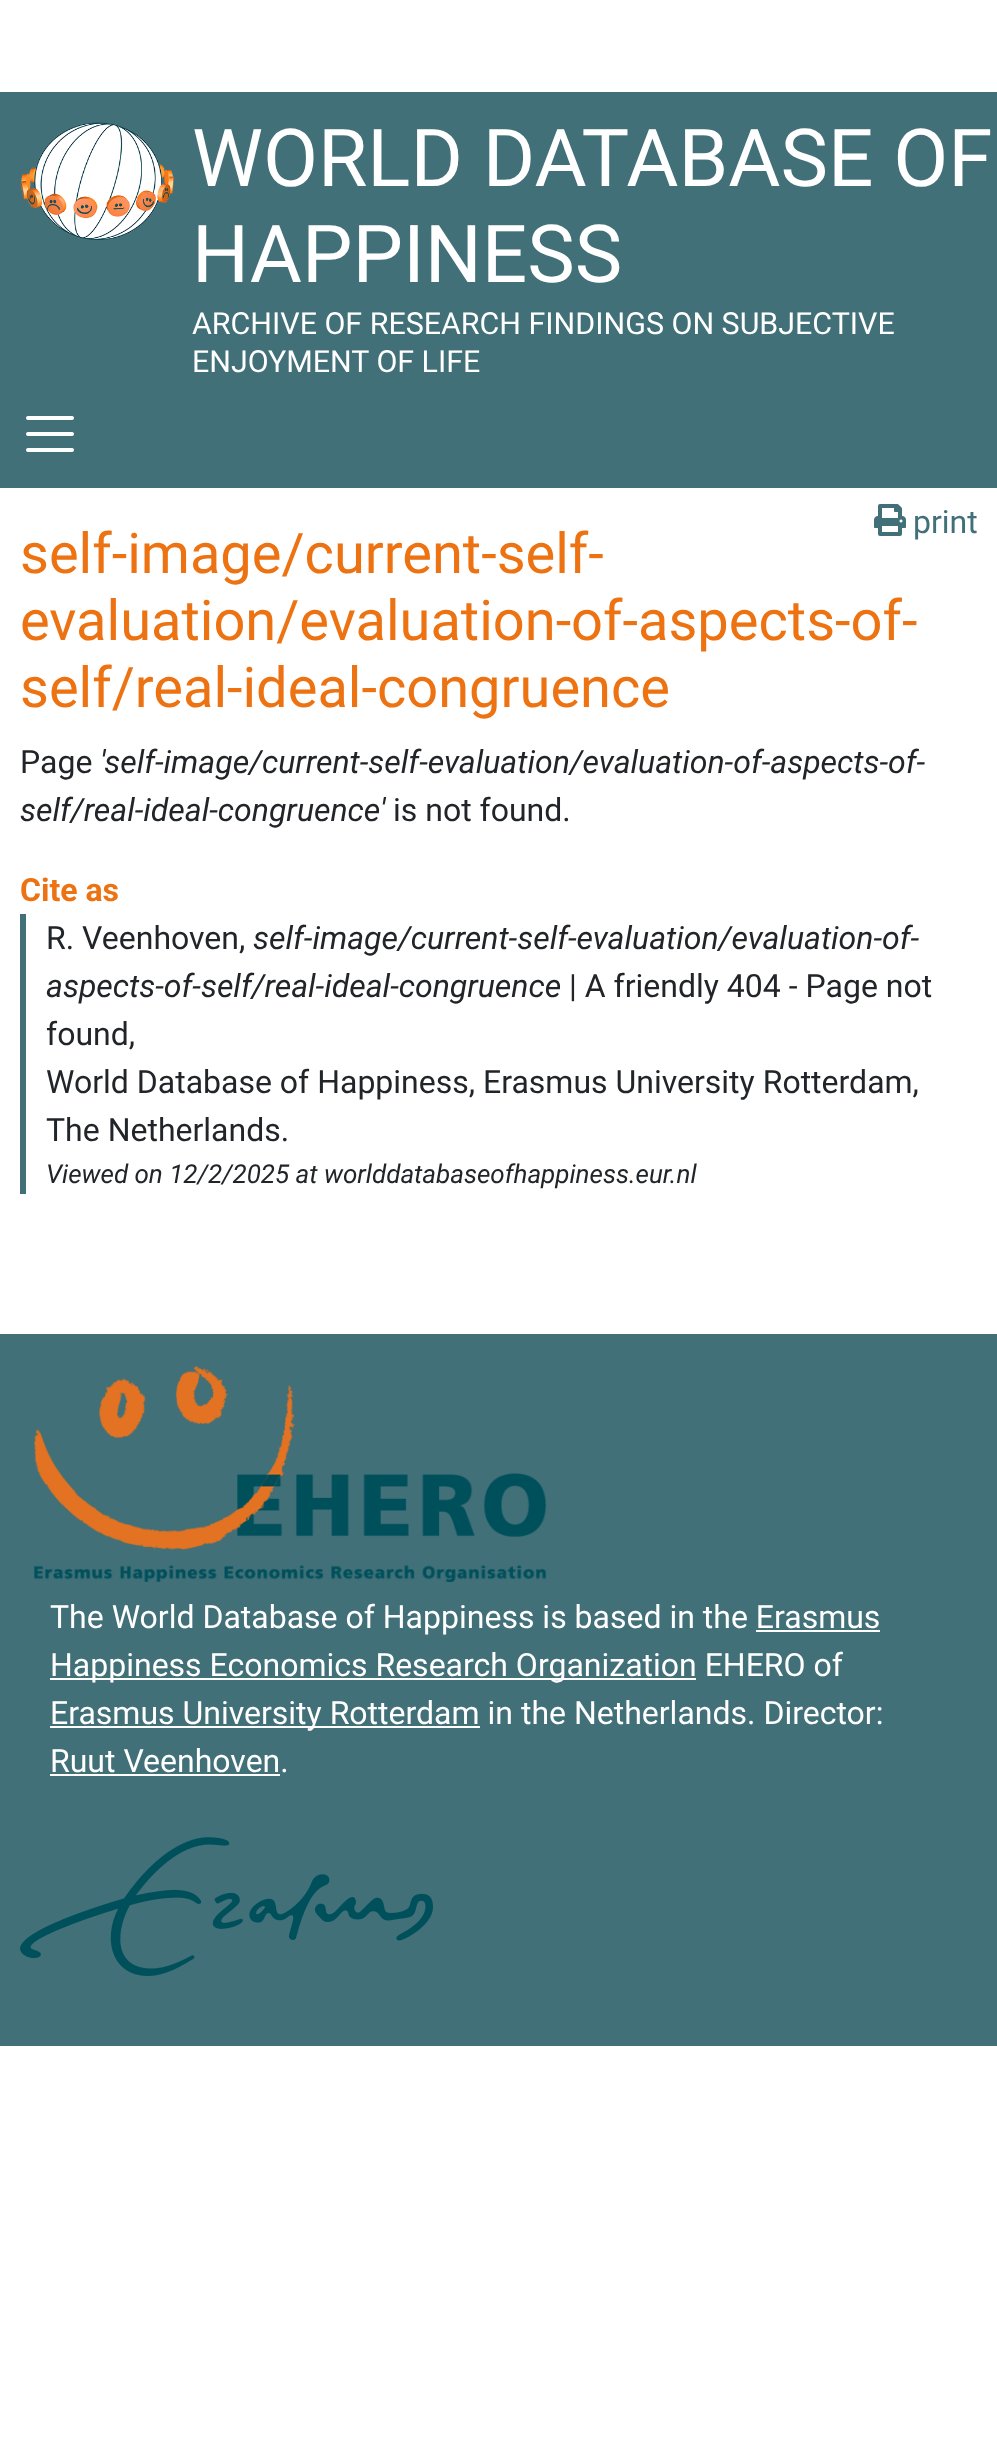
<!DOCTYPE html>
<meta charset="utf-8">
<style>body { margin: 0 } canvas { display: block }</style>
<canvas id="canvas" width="997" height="2464"></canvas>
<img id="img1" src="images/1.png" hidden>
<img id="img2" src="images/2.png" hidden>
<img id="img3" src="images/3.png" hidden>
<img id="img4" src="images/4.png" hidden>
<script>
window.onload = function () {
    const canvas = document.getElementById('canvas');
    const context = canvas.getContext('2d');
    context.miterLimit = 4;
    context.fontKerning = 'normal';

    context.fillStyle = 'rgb(255, 255, 255)';
    context.fillRect(0, 0, 997, 2464);
    context.fillStyle = 'rgb(65, 112, 120)';
    context.fillRect(0, 92, 997, 396);
    context.drawImage(document.getElementById('img1'), 20, 122, 154, 118);
    context.beginPath();
    context.moveTo(28, 418);
    context.lineTo(72, 418);
    context.moveTo(28, 434);
    context.lineTo(72, 434);
    context.moveTo(28, 450);
    context.lineTo(72, 450);
    context.strokeStyle = 'rgb(255, 255, 255)';
    context.lineWidth = 4;
    context.lineCap = 'round';
    context.stroke();
    context.drawImage(document.getElementById('img2'), 874, 504, 32, 32);
    context.fillRect(20, 914, 6, 280);
    context.fillRect(0, 1334, 997, 712);
    context.drawImage(document.getElementById('img3'), 33, 1366, 514, 216);
    context.fillStyle = 'rgb(255, 255, 255)';
    context.fillRect(756, 1630, 124, 2);
    context.fillRect(50, 1678, 646, 2);
    context.fillRect(50, 1726, 430, 2);
    context.fillRect(50, 1774, 230, 2);
    context.drawImage(document.getElementById('img4'), 20, 1837, 413, 139);
    context.font = '80px Roboto';
    context.fillText('WORLD DATABASE OF', 192, 186);
    context.fillText('HAPPINESS', 192, 282);
    context.font = '30.4px Roboto';
    context.fillText('ARCHIVE OF RESEARCH FINDINGS ON SUBJECTIVE', 192, 334);
    context.fillText('ENJOYMENT OF LIFE', 192, 372);
    context.font = '32px Roboto';
    context.fillStyle = 'rgb(65, 112, 120)';
    context.fillText('print', 913, 533);
    context.font = '56px Roboto';
    context.fillStyle = 'rgb(237, 114, 18)';
    context.fillText('self-image/current-self-', 20, 573);
    context.fillText('evaluation/evaluation-of-aspects-of-', 20, 640);
    context.fillText('self/real-ideal-congruence', 20, 707);
    context.font = '32px Roboto';
    context.fillStyle = 'rgb(33, 37, 41)';
    context.fillText('Page', 20, 773);
    context.font = 'italic 32px Roboto';
    context.fillText('\'self-image/current-self-evaluation/evaluation-of-aspects-of-', 100, 773);
    context.fillText('self/real-ideal-congruence\'', 20, 821);
    context.font = '32px Roboto';
    context.fillText('is not found.', 393, 821);
    context.font = 'bold 32px Roboto';
    context.fillStyle = 'rgb(237, 114, 18)';
    context.fillText('Cite as', 20, 901);
    context.font = '32px Roboto';
    context.fillStyle = 'rgb(33, 37, 41)';
    context.fillText('R. Veenhoven,', 46, 949);
    context.font = 'italic 32px Roboto';
    context.fillText('self-image/current-self-evaluation/evaluation-of-', 253, 949);
    context.fillText('aspects-of-self/real-ideal-congruence', 46, 997);
    context.font = '32px Roboto';
    context.fillText('| A friendly 404 - Page not', 569, 997);
    context.fillText('found,', 46, 1045);
    context.fillText('World Database of Happiness, Erasmus University Rotterdam,', 46, 1093);
    context.fillText('The Netherlands.', 46, 1141);
    context.font = 'italic 26px Roboto';
    context.fillText('Viewed on 12/2/2025 at worlddatabaseofhappiness.eur.nl', 46, 1183);
    context.font = '32px Roboto';
    context.fillStyle = 'rgb(255, 255, 255)';
    context.fillText('The World Database of Happiness is based in the Erasmus', 50, 1628);
    context.fillText('Happiness Economics Research Organization EHERO of', 50, 1676);
    context.fillText('Erasmus University Rotterdam in the Netherlands. Director:', 50, 1724);
    context.fillText('Ruut Veenhoven.', 50, 1772);
};
</script>
